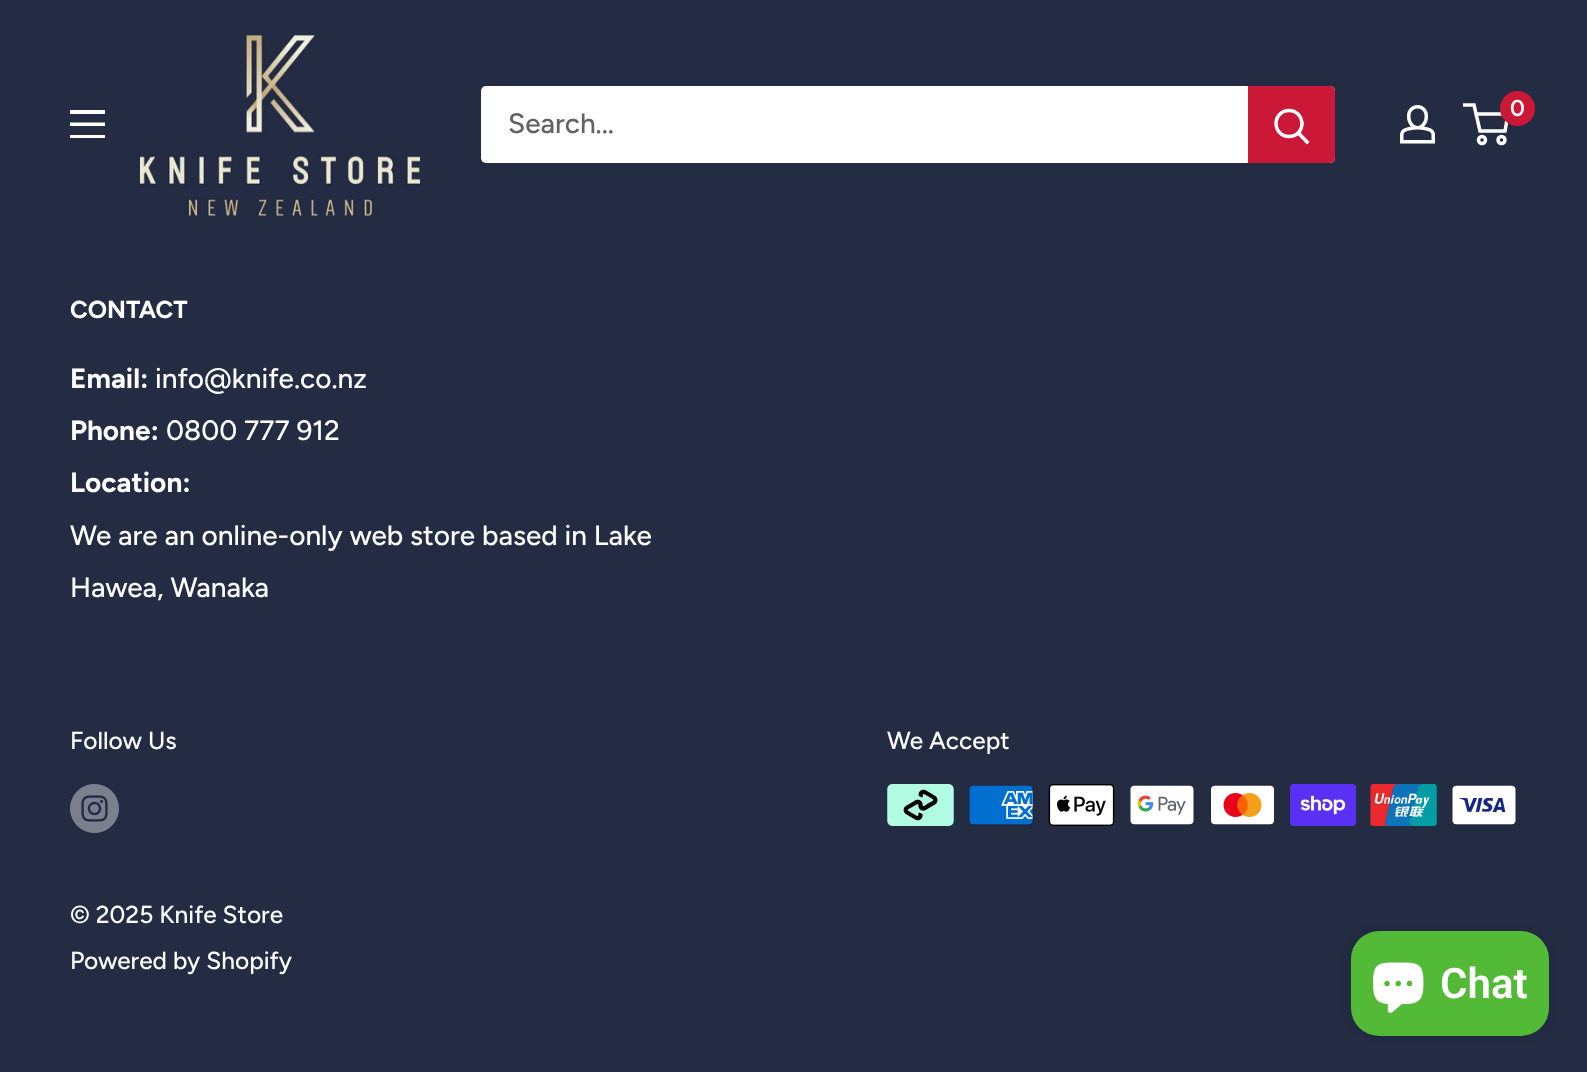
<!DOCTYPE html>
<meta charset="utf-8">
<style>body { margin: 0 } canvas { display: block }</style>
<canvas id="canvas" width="1587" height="1072"></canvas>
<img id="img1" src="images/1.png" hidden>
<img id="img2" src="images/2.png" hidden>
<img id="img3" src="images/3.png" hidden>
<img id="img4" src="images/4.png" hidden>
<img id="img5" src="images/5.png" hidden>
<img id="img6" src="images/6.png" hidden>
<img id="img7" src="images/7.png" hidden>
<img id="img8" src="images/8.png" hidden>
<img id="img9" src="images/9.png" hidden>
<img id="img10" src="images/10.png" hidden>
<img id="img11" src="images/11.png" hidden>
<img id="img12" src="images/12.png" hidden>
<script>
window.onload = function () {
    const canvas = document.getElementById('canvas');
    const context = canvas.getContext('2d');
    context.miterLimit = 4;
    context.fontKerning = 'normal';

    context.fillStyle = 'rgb(36, 44, 68)';
    context.fillRect(0, 0, 1587, 1072);
    context.drawImage(document.getElementById('img1'), 140, 35, 280, 181);
    context.drawImage(document.getElementById('img2'), 1400, 105, 35, 39);
    context.beginPath();
    context.arc(1482, 140, 3.5, 0, 2 * Math.PI);
    context.strokeStyle = 'rgb(255, 255, 255)';
    context.lineWidth = 3.5;
    context.stroke();
    context.beginPath();
    context.arc(1501.5, 140, 3.5, 0, 2 * Math.PI);
    context.stroke();
    context.beginPath();
    context.moveTo(1476, 114);
    context.lineTo(1508, 114);
    context.lineTo(1505, 131);
    context.lineTo(1480, 131);
    context.lineTo(1474, 105);
    context.lineTo(1463, 105);
    context.stroke();
    context.fillStyle = 'rgb(203, 24, 54)';
    context.beginPath();
    context.arc(1517.5, 108.5, 17.5, 0, 2 * Math.PI);
    context.fill();
    context.fillStyle = 'rgb(255, 255, 255)';
    context.beginPath();
    context.moveTo(70, 135);
    context.lineTo(105, 135);
    context.lineTo(105, 138);
    context.lineTo(70, 138);
    context.closePath();
    context.moveTo(70, 110);
    context.lineTo(105, 110);
    context.lineTo(105, 114);
    context.lineTo(70, 114);
    context.closePath();
    context.moveTo(70, 122.5);
    context.lineTo(105, 122.5);
    context.lineTo(105, 126);
    context.lineTo(70, 126);
    context.closePath();
    context.fill('evenodd');
    context.beginPath();
    context.roundRect(481, 86, 854, 77, 5);
    context.fill();
    context.fillStyle = 'rgb(203, 24, 54)';
    context.beginPath();
    context.roundRect(1248, 86, 87, 77, [0, 5, 5, 0]);
    context.fill();
    context.beginPath();
    context.moveTo(1307, 142);
    context.lineTo(1298.5, 133);
    context.lineCap = 'square';
    context.stroke();
    context.beginPath();
    context.arc(1289, 123.5, 13, 0, 2 * Math.PI);
    context.stroke();
    context.drawImage(document.getElementById('img3'), 70, 784, 49, 49);
    context.drawImage(document.getElementById('img4'), 887, 784, 67, 42);
    context.drawImage(document.getElementById('img5'), 968, 784, 66, 42);
    context.drawImage(document.getElementById('img6'), 1048, 784, 67, 42);
    context.drawImage(document.getElementById('img7'), 1129, 784, 66, 42);
    context.drawImage(document.getElementById('img8'), 1210, 784, 65, 42);
    context.drawImage(document.getElementById('img9'), 1290, 784, 66, 42);
    context.drawImage(document.getElementById('img10'), 1370, 784, 67, 42);
    context.drawImage(document.getElementById('img11'), 1451, 784, 66, 42);
    context.fillStyle = 'rgba(0, 0, 0, 0.15)';
    context.filter = 'blur(4.5px)';
    context.beginPath();
    context.roundRect(1351, 931, 198, 105, 28);
    context.fill();
    context.filter = 'none';
    context.fillStyle = 'rgb(83, 186, 55)';
    context.beginPath();
    context.roundRect(1351, 931, 198, 105, 28);
    context.fill();
    context.drawImage(document.getElementById('img12'), 1373, 962, 51, 51);
    context.font = '600 23px Figtree';
    context.fillStyle = 'rgb(255, 255, 255)';
    context.fillText('0', 1510, 116);
    context.font = '500 28px Figtree';
    context.fillStyle = 'rgb(97, 97, 97)';
    context.fillText('Search...', 508, 133);
    context.font = 'bold 24.5px Figtree';
    context.fillStyle = 'rgb(255, 255, 255)';
    context.fillText('CONTACT', 70, 318);
    context.font = 'bold 28px Figtree';
    context.fillText('Email:', 70, 388);
    context.font = '500 28px Figtree';
    context.fillText('info@knife.co.nz', 155, 388);
    context.font = 'bold 28px Figtree';
    context.fillText('Phone:', 70, 440);
    context.font = '500 28px Figtree';
    context.fillText('0800 777 912', 166, 440);
    context.font = 'bold 28px Figtree';
    context.fillText('Location:', 70, 492);
    context.font = '500 28px Figtree';
    context.fillText('We are an online-only web store based in Lake', 70, 545);
    context.fillText('Hawea, Wanaka', 70, 597);
    context.font = '500 24.5px Figtree';
    context.fillText('Follow Us', 70, 749);
    context.fillText('We Accept', 887, 749);
    context.fillText('© 2025 Knife Store', 70, 923);
    context.fillText('Powered by Shopify', 70, 969);
    context.font = '600 42px Roboto';
    context.fillText('Chat', 1440, 998);
};
</script>
